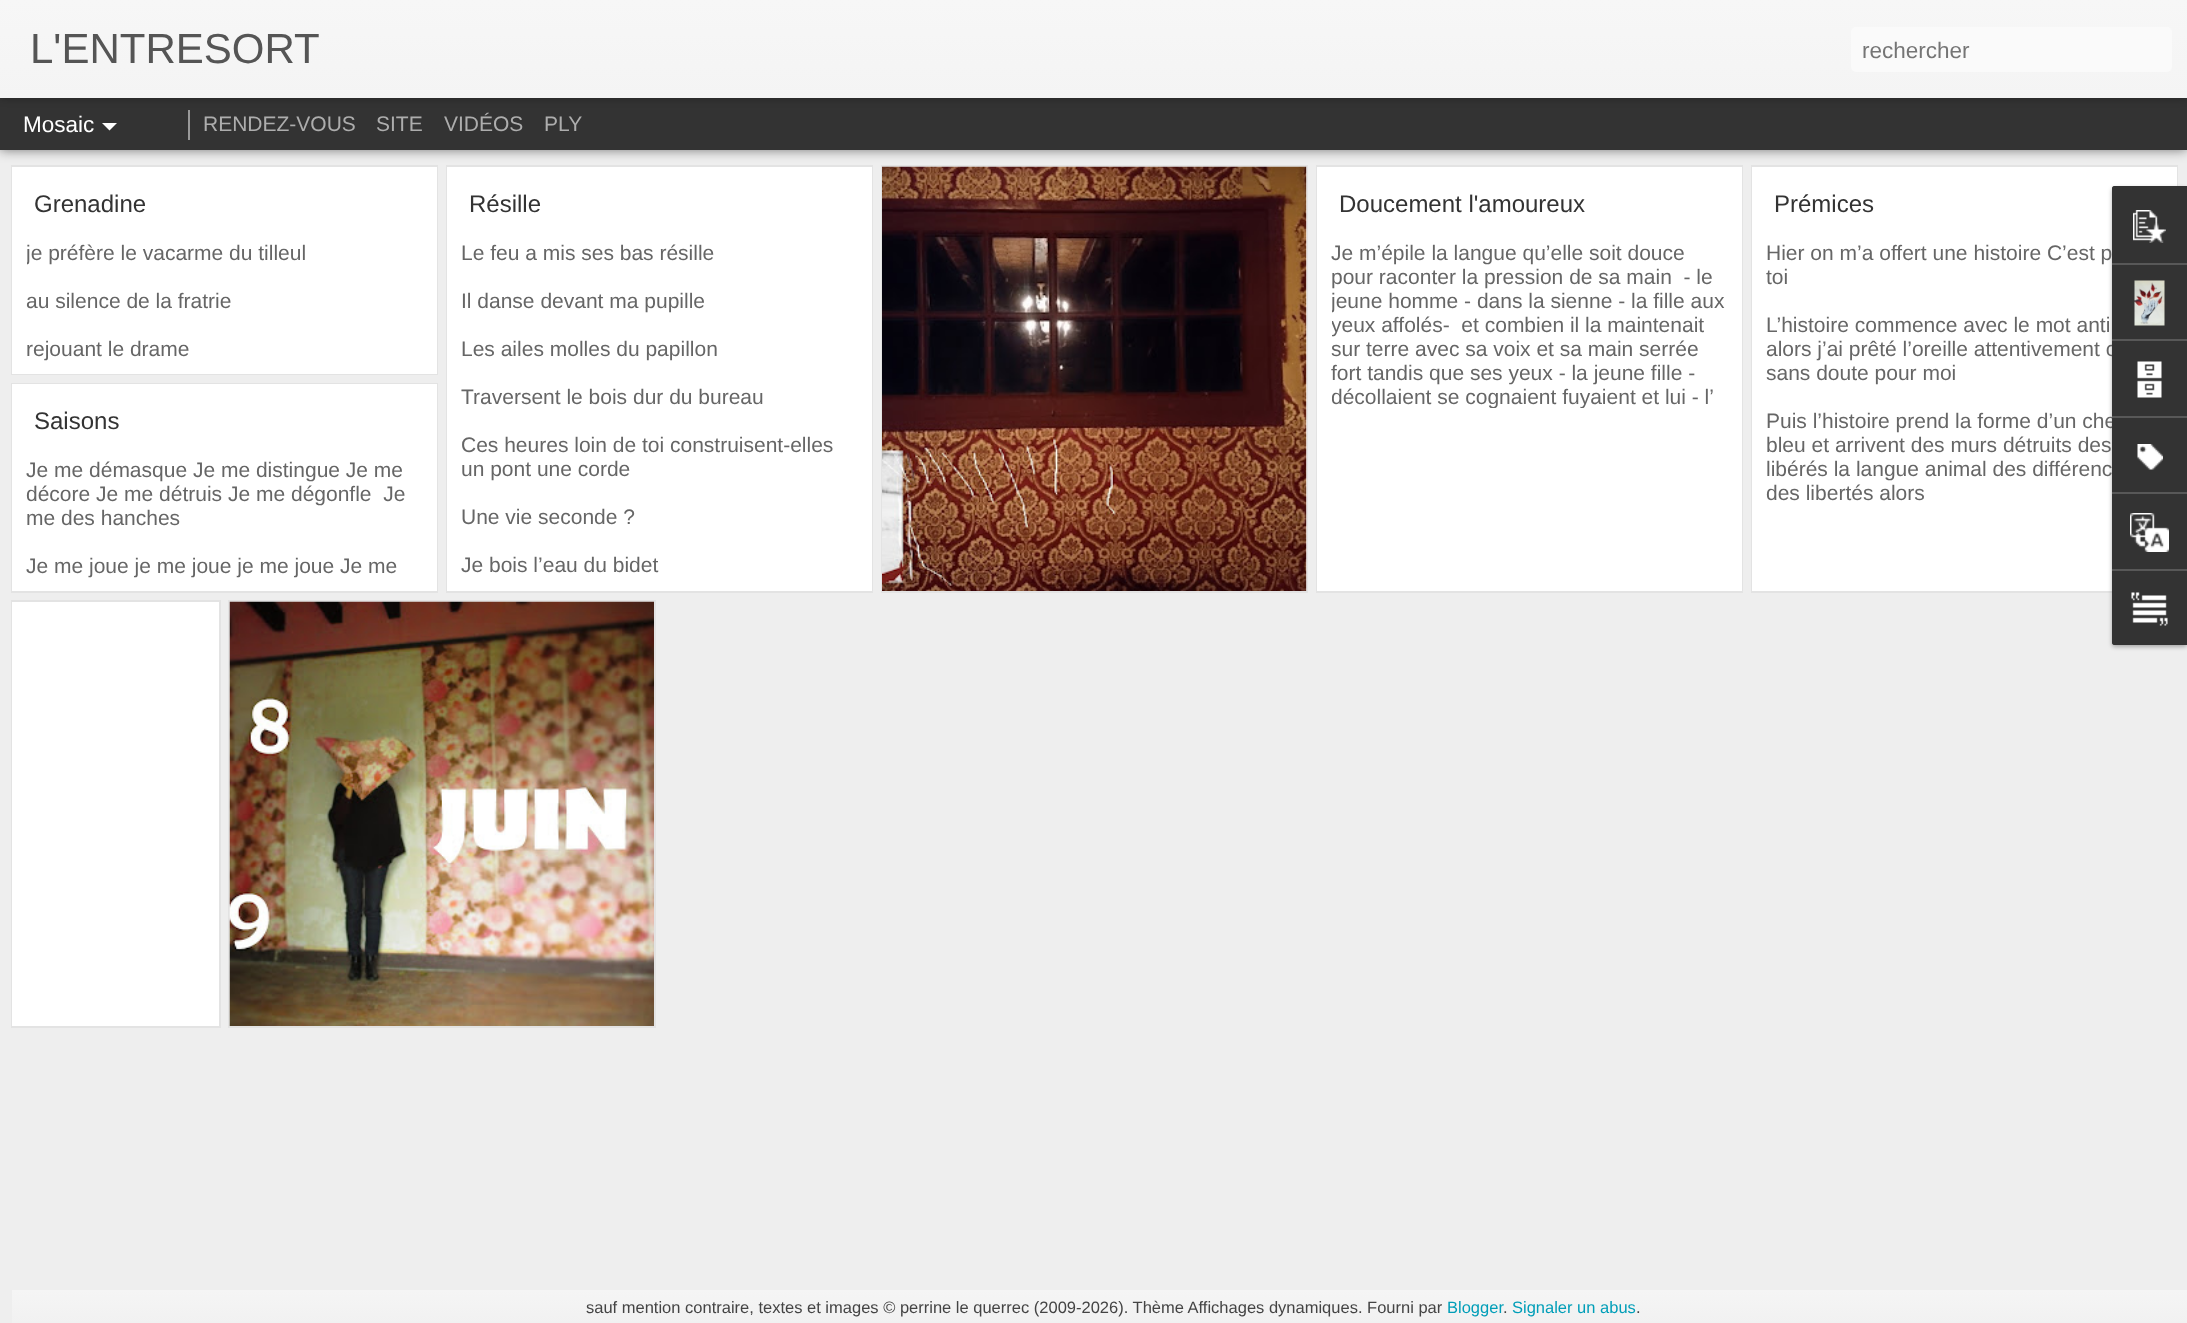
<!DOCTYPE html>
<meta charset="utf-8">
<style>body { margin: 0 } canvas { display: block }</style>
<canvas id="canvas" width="2187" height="1323"></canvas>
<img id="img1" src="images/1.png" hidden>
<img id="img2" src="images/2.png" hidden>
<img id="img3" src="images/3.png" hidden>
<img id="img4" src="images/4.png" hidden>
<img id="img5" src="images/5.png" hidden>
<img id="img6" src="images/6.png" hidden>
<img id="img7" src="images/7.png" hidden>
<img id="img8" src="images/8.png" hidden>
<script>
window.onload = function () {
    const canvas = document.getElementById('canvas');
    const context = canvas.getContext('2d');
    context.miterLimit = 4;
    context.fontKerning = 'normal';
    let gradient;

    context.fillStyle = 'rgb(238, 238, 238)';
    context.fillRect(0, 0, 2187, 1323);
    context.strokeStyle = 'rgb(227, 227, 227)';
    context.lineWidth = 2;
    context.strokeRect(12, 166, 425, 208);
    context.fillStyle = 'rgb(255, 255, 255)';
    context.fillRect(12, 167, 425, 207);
    context.strokeRect(447, 166, 425, 426);
    context.fillRect(447, 167, 425, 424);
    context.strokeRect(882, 166, 425, 426);
    context.fillRect(1306, 167, 1, 424);
    context.drawImage(document.getElementById('img1'), 882, 166, 425, 425);
    context.strokeRect(1317, 166, 425, 426);
    context.fillRect(1317, 167, 425, 424);
    context.strokeRect(1752, 166, 425, 426);
    context.fillRect(1752, 167, 425, 424);
    context.fillStyle = 'rgba(0, 0, 0, 0.5)';
    context.filter = 'blur(6px)';
    context.beginPath();
    context.rect(0, 98, 2187, 52);
    context.fill();
    context.filter = 'none';
    context.fillStyle = 'rgb(51, 51, 51)';
    context.fillRect(0, 98, 2187, 52);
    context.fillStyle = 'rgb(153, 153, 153)';
    context.fillRect(188, 110, 2, 30);
    context.fillStyle = 'rgba(0, 0, 0, 0.3)';
    context.filter = 'blur(4px)';
    context.beginPath();
    context.rect(0, 0, 2187, 98);
    context.fill();
    context.filter = 'none';
    gradient = context.createLinearGradient(0, 0, 0, 98);
    gradient.addColorStop(0, 'rgb(247, 247, 247)');
    gradient.addColorStop(1, 'rgb(244, 244, 244)');
    context.fillStyle = gradient;
    context.fillRect(0, 0, 2187, 98);
    context.fillStyle = 'rgb(250, 250, 250)';
    context.beginPath();
    context.roundRect(1851, 27, 321, 45, 5);
    context.fill();
    context.fillStyle = 'rgb(255, 255, 255)';
    context.beginPath();
    context.moveTo(102, 123);
    context.lineTo(117, 123);
    context.lineTo(109.5, 130.5);
    context.closePath();
    context.fill();
    context.strokeRect(12, 384, 425, 208);
    context.fillRect(12, 384, 425, 207);
    context.strokeRect(12, 601, 208, 426);
    context.fillRect(12, 602, 207, 424);
    context.strokeRect(229, 601, 426, 426);
    context.drawImage(document.getElementById('img2'), 229, 601, 425, 425);
    context.fillStyle = 'rgba(0, 0, 0, 0.3)';
    context.filter = 'blur(2px)';
    context.beginPath();
    context.roundRect(2112, 188, 75, 459, 3);
    context.fill();
    context.filter = 'none';
    gradient = context.createLinearGradient(1113, 1290, 1113, 1323);
    gradient.addColorStop(0, 'rgb(245, 245, 245)');
    gradient.addColorStop(1, 'rgb(241, 241, 241)');
    context.fillStyle = gradient;
    context.fillRect(12, 1290, 2175, 33);
    context.font = '42px Liberation Sans';
    context.fillStyle = 'rgb(85, 85, 85)';
    context.fillText('L\'ENTRESORT', 30, 63);
    context.font = '22.5px Liberation Sans';
    context.fillStyle = 'rgb(117, 117, 117)';
    context.fillText('rechercher', 1862, 58);
    context.fillStyle = 'rgb(255, 255, 255)';
    context.fillText('Mosaic', 23, 132);
    context.font = '21px Liberation Sans';
    context.fillStyle = 'rgb(173, 173, 173)';
    context.fillText('RENDEZ-VOUS', 203, 131);
    context.fillText('SITE', 376, 131);
    context.fillText('VIDÉOS', 444, 131);
    context.fillText('PLY', 544, 131);
    context.font = '24px Liberation Sans';
    context.fillStyle = 'rgb(51, 51, 51)';
    context.fillText('Grenadine', 34, 212);
    context.save();
    context.beginPath();
    context.rect(27, 240, 395, 134);
    context.clip();
    context.font = '21px Liberation Sans';
    context.fillStyle = 'rgb(102, 102, 102)';
    context.fillText('je préfère le vacarme du tilleul', 26, 260);
    context.restore();
    context.font = '21px Liberation Sans';
    context.fillStyle = 'rgb(102, 102, 102)';
    context.fillText('au silence de la fratrie', 26, 308);
    context.fillText('rejouant le drame', 26, 356);
    context.font = '24px Liberation Sans';
    context.fillStyle = 'rgb(51, 51, 51)';
    context.fillText('Résille', 469, 212);
    context.font = '21px Liberation Sans';
    context.fillStyle = 'rgb(102, 102, 102)';
    context.fillText('Le feu a mis ses bas résille', 461, 260);
    context.fillText('Il danse devant ma pupille', 461, 308);
    context.fillText('Les ailes molles du papillon', 461, 356);
    context.fillText('Traversent le bois dur du bureau', 461, 404);
    context.fillText('Ces heures loin de toi construisent-elles', 461, 452);
    context.fillText('un pont une corde', 461, 476);
    context.fillText('Une vie seconde ?', 461, 524);
    context.fillText('Je bois l’eau du bidet', 461, 572);
    context.font = '24px Liberation Sans';
    context.fillStyle = 'rgb(51, 51, 51)';
    context.fillText('Doucement l\'amoureux', 1339, 212);
    context.font = '21px Liberation Sans';
    context.fillStyle = 'rgb(102, 102, 102)';
    context.fillText('Je m’épile la langue qu’elle soit douce', 1331, 260);
    context.fillText('pour raconter la pression de sa main  - le', 1331, 284);
    context.save();
    context.beginPath();
    context.rect(1332, 240, 395, 168);
    context.clip();
    context.fillText('jeune homme - dans la sienne - la fille aux', 1331, 308);
    context.fillText('yeux affolés-  et combien il la maintenait', 1331, 332);
    context.restore();
    context.fillText('sur terre avec sa voix et sa main serrée', 1331, 356);
    context.fillText('fort tandis que ses yeux - la jeune fille -', 1331, 380);
    context.save();
    context.beginPath();
    context.rect(1332, 240, 395, 168);
    context.clip();
    context.fillText('décollaient se cognaient fuyaient et lui - l’', 1331, 404);
    context.restore();
    context.font = '24px Liberation Sans';
    context.fillStyle = 'rgb(51, 51, 51)';
    context.fillText('Prémices', 1774, 212);
    context.font = '21px Liberation Sans';
    context.fillStyle = 'rgb(102, 102, 102)';
    context.fillText('Hier on m’a offert une histoire C’est p', 1766, 260);
    context.fillText('toi', 1766, 284);
    context.fillText('L’histoire commence avec le mot anti', 1766, 332);
    context.fillText('alors j’ai prêté l’oreille attentivement c', 1766, 356);
    context.fillText('sans doute pour moi', 1766, 380);
    context.fillText('Puis l’histoire prend la forme d’un che', 1766, 428);
    context.fillText('bleu et arrivent des murs détruits des', 1766, 452);
    context.fillText('libérés la langue animal des différenc', 1766, 476);
    context.fillText('des libertés alors', 1766, 500);
    context.font = '24px Liberation Sans';
    context.fillStyle = 'rgb(51, 51, 51)';
    context.fillText('Saisons', 34, 429);
    context.font = '21px Liberation Sans';
    context.fillStyle = 'rgb(102, 102, 102)';
    context.fillText('Je me démasque Je me distingue Je me', 26, 477);
    context.fillText('décore Je me détruis Je me dégonfle  Je', 26, 501);
    context.fillText('me des hanches', 26, 525);
    context.fillText('Je me joue je me joue je me joue Je me', 26, 573);
    context.fillStyle = 'rgb(51, 51, 51)';
    context.beginPath();
    context.roundRect(2112, 186, 75, 459, [3, 0, 0, 3]);
    context.fill();
    context.beginPath();
    context.roundRect(2112, 186, 75, 77, [3, 0, 0, 0]);
    context.fill();
    context.drawImage(document.getElementById('img3'), 2133, 210, 33, 33);
    context.fillStyle = 'rgb(88, 88, 88)';
    context.fillRect(2112, 263, 75, 2);
    context.drawImage(document.getElementById('img4'), 2134, 280, 31, 46);
    context.fillRect(2112, 339, 75, 2);
    context.drawImage(document.getElementById('img5'), 2137, 361, 25, 37);
    context.fillRect(2112, 416, 75, 2);
    context.drawImage(document.getElementById('img6'), 2137, 444, 26, 26);
    context.fillRect(2112, 492, 75, 2);
    context.drawImage(document.getElementById('img7'), 2130, 513, 39, 39);
    context.fillStyle = 'rgb(51, 51, 51)';
    context.beginPath();
    context.roundRect(2112, 569, 75, 76, [0, 0, 0, 3]);
    context.fill();
    context.fillStyle = 'rgb(88, 88, 88)';
    context.fillRect(2112, 569, 75, 2);
    context.drawImage(document.getElementById('img8'), 2131, 592, 37, 34);
    context.font = '16.5px Liberation Sans';
    context.fillStyle = 'rgb(68, 68, 68)';
    context.fillText('sauf mention contraire, textes et images © perrine le querrec (2009-2026). Thème Affichages dynamiques. Fourni par', 586, 1313);
    context.fillStyle = 'rgb(0, 158, 184)';
    context.fillText('Blogger', 1447, 1313);
    context.fillStyle = 'rgb(68, 68, 68)';
    context.fillText('.', 1503, 1313);
    context.fillStyle = 'rgb(0, 158, 184)';
    context.fillText('Signaler un abus', 1512, 1313);
    context.fillStyle = 'rgb(68, 68, 68)';
    context.fillText('.', 1636, 1313);
};
</script>
